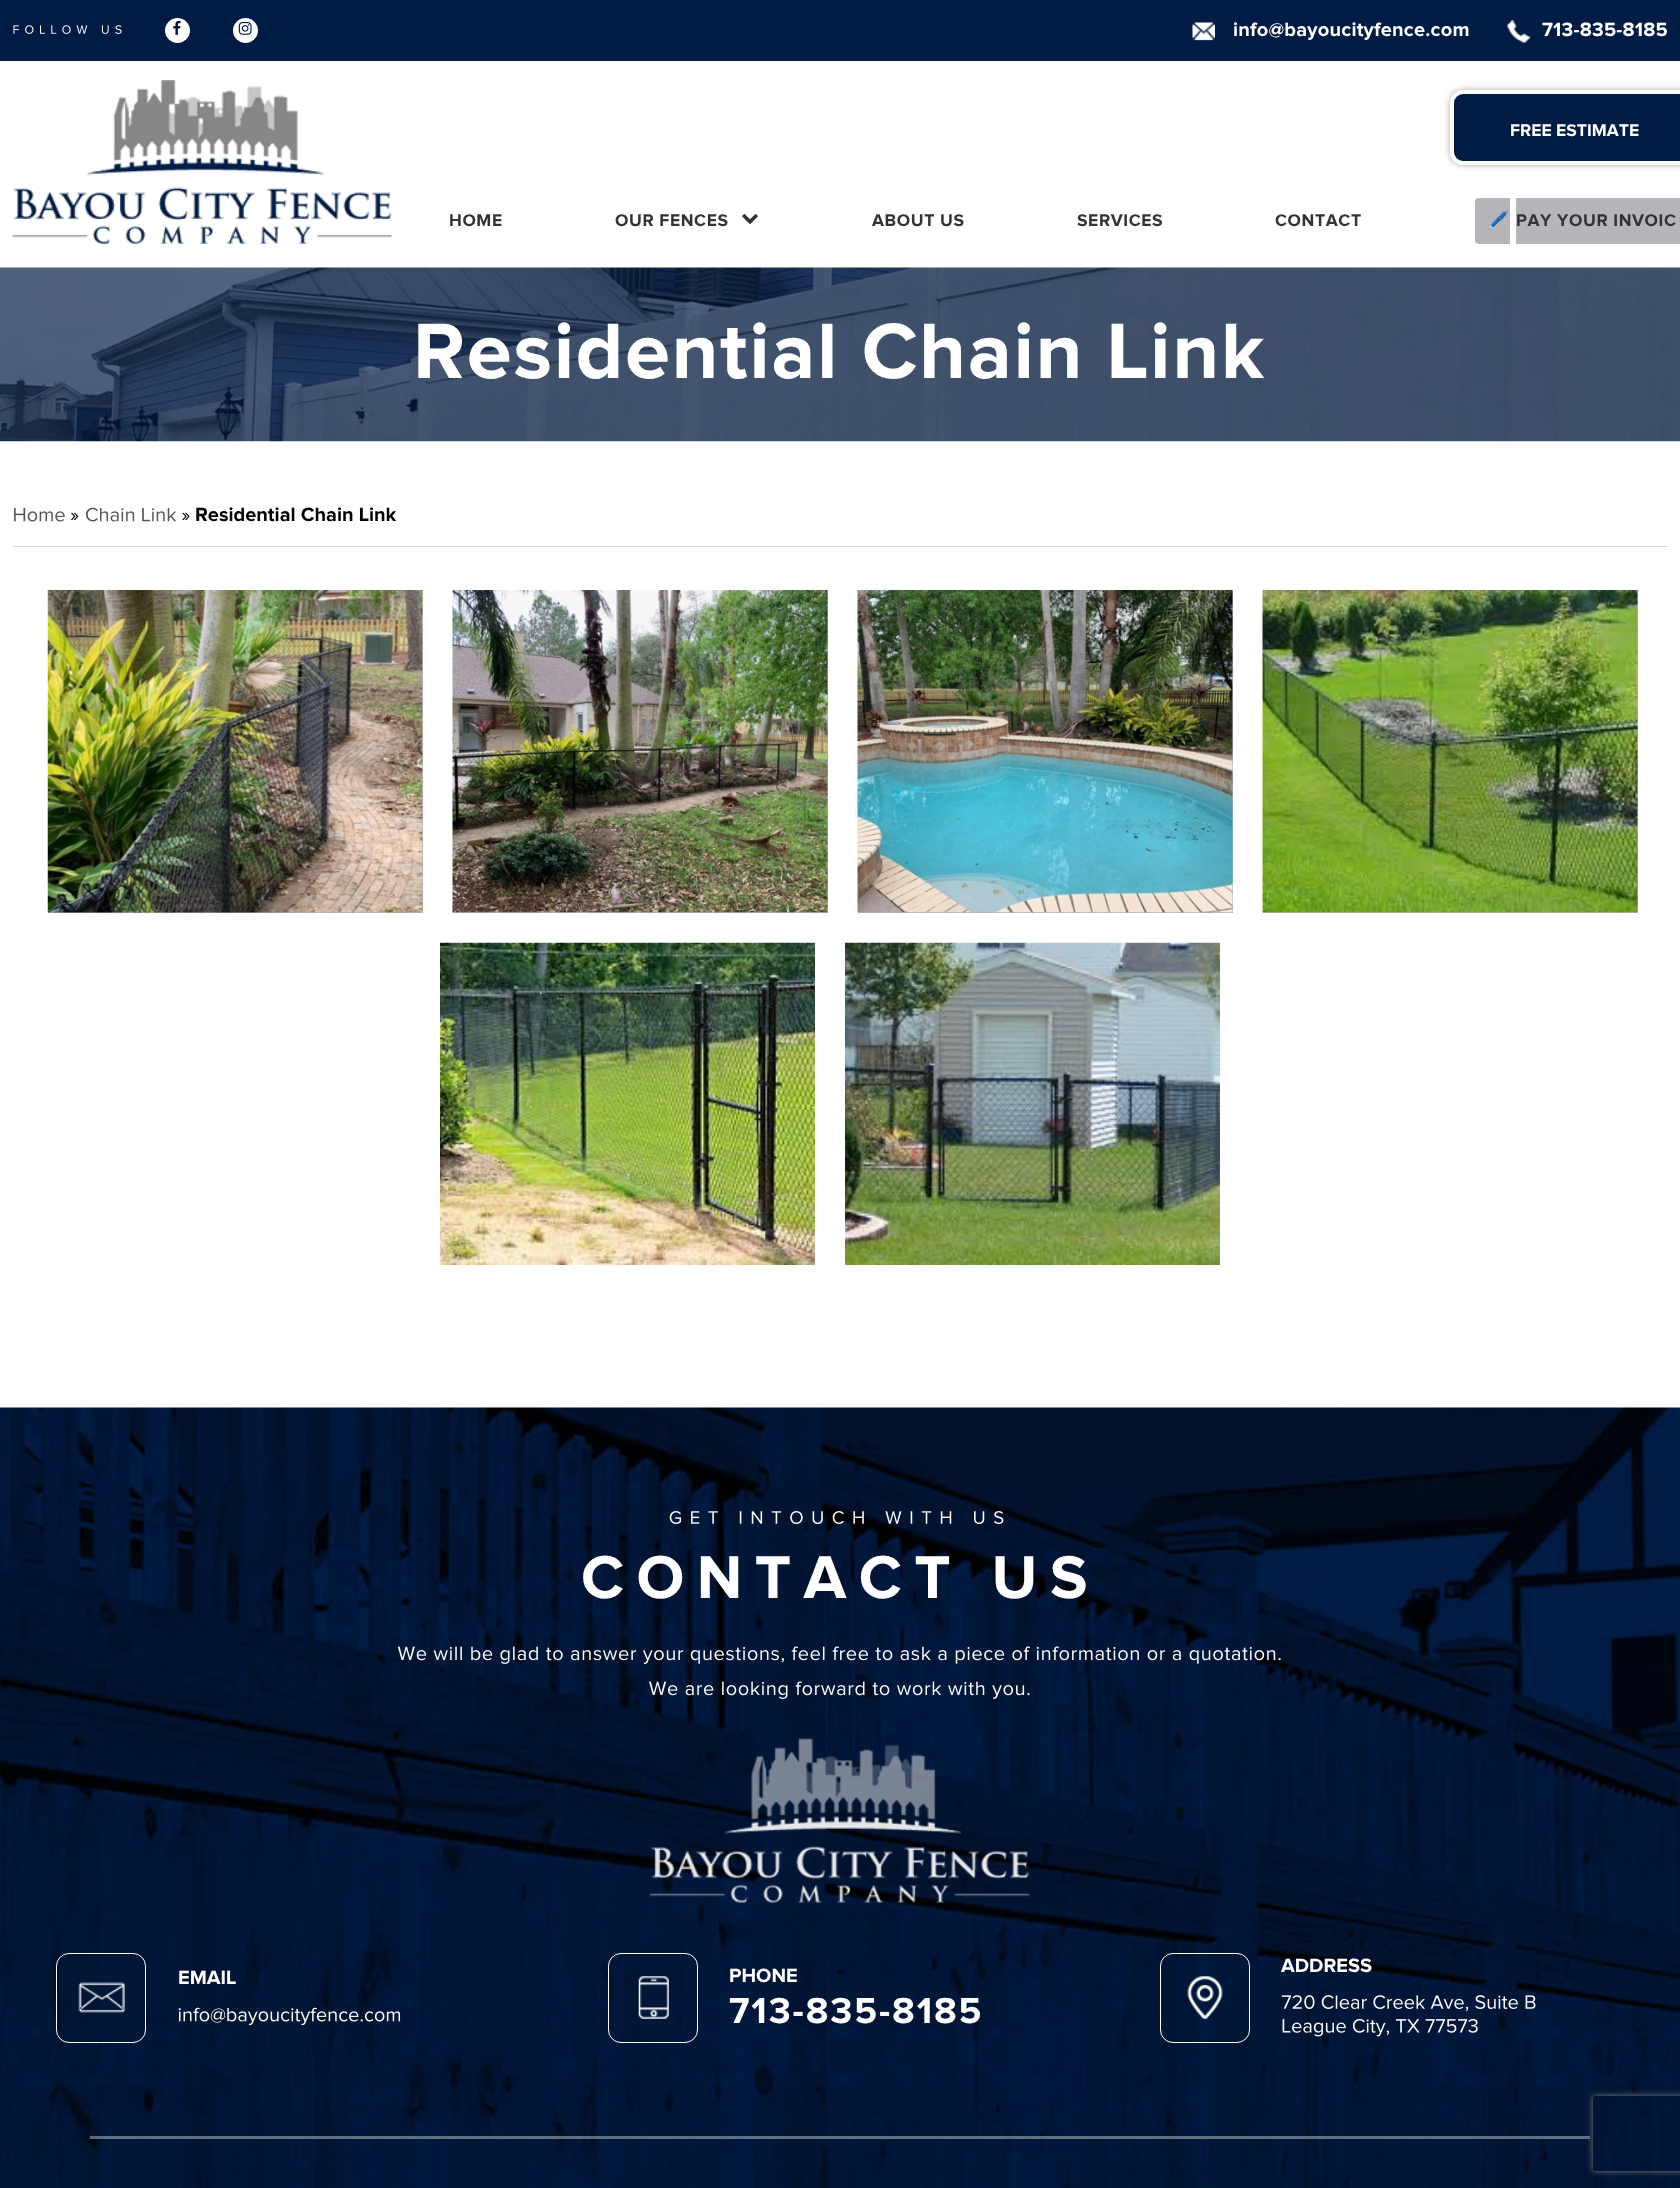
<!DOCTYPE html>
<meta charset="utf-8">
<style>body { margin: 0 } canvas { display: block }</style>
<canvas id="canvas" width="1680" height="2188"></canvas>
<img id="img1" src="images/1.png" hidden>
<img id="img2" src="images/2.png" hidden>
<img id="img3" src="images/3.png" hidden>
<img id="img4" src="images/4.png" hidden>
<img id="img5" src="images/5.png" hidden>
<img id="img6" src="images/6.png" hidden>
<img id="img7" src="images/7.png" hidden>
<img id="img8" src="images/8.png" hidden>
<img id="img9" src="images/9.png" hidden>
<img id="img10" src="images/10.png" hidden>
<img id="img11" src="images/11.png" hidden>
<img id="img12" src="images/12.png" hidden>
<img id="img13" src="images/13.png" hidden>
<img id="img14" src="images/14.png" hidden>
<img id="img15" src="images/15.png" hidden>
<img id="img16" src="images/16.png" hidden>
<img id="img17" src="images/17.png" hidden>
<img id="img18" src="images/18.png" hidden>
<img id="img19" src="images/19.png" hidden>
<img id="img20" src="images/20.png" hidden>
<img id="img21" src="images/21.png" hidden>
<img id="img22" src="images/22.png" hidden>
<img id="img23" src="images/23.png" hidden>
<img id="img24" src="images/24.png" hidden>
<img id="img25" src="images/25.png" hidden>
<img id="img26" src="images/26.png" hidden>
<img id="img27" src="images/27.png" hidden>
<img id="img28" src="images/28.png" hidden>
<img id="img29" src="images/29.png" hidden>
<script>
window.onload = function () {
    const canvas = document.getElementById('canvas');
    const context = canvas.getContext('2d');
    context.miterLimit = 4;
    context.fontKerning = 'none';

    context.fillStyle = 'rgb(255, 255, 255)';
    context.fillRect(0, 0, 1680, 2188);
    context.fillStyle = 'rgb(0, 27, 68)';
    context.fillRect(0, 0, 1680, 61);
    context.drawImage(document.getElementById('img1'), 13, 25, 109, 9);
    context.fillStyle = 'rgb(255, 255, 255)';
    context.beginPath();
    context.arc(177.5, 30.5, 12.5, 0, 2 * Math.PI);
    context.fill();
    context.drawImage(document.getElementById('img2'), 173, 20, 8, 15);
    context.beginPath();
    context.arc(245.5, 30.5, 12.5, 0, 2 * Math.PI);
    context.fill();
    context.drawImage(document.getElementById('img3'), 238, 22, 14, 13);
    context.drawImage(document.getElementById('img4'), 1192, 22, 23, 19);
    context.drawImage(document.getElementById('img5'), 1507, 20, 23, 23);
    context.drawImage(document.getElementById('img6'), 12, 80, 381, 164);
    context.fillStyle = 'rgb(170, 170, 170)';
    context.filter = 'blur(3px)';
    context.beginPath();
    context.roundRect(1450, 90, 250, 75, 13);
    context.fill();
    context.filter = 'none';
    context.fillStyle = 'rgb(0, 27, 68)';
    context.beginPath();
    context.roundRect(1452, 92, 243, 71, 11);
    context.fill();
    context.strokeStyle = 'rgb(255, 255, 255)';
    context.lineWidth = 4;
    context.stroke();
    context.drawImage(document.getElementById('img7'), 742, 214, 16, 10);
    context.fillStyle = 'rgb(181, 182, 185)';
    context.beginPath();
    context.roundRect(1475, 198, 35, 46, [4, 0, 0, 4]);
    context.fill();
    context.fillRect(1516, 198, 164, 46);
    context.drawImage(document.getElementById('img8'), 0, 267, 1680, 175);
    context.fillStyle = 'rgb(214, 214, 214)';
    context.fillRect(13, 546, 1655, 1);
    context.drawImage(document.getElementById('img9'), 14, 507, 51, 15);
    context.drawImage(document.getElementById('img10'), 70, 512, 9, 8);
    context.drawImage(document.getElementById('img11'), 86, 507, 91, 15);
    context.drawImage(document.getElementById('img12'), 182, 512, 8, 8);
    context.fillStyle = 'rgb(179, 179, 179)';
    context.fillRect(48, 590, 375, 323);
    context.drawImage(document.getElementById('img13'), 47, 590, 376, 323);
    context.fillRect(453, 590, 375, 323);
    context.drawImage(document.getElementById('img14'), 452, 590, 376, 323);
    context.fillRect(858, 590, 375, 323);
    context.drawImage(document.getElementById('img15'), 857, 590, 376, 323);
    context.fillRect(1263, 590, 375, 323);
    context.drawImage(document.getElementById('img16'), 1262, 590, 376, 323);
    context.drawImage(document.getElementById('img17'), 440, 942, 375, 323);
    context.drawImage(document.getElementById('img18'), 845, 942, 375, 323);
    context.drawImage(document.getElementById('img19'), 0, 1407, 1680, 781);
    context.drawImage(document.getElementById('img20'), 669, 1511, 335, 13);
    context.drawImage(document.getElementById('img21'), 397, 1646, 884, 18);
    context.drawImage(document.getElementById('img22'), 649, 1681, 381, 18);
    context.drawImage(document.getElementById('img23'), 650, 1738, 380, 165);
    context.drawImage(document.getElementById('img24'), 1187, 1976, 36, 43);
    context.beginPath();
    context.roundRect(1160.5, 1953.5, 89, 89, 12.5);
    context.lineWidth = 1;
    context.stroke();
    context.drawImage(document.getElementById('img25'), 1281, 1995, 255, 17);
    context.drawImage(document.getElementById('img26'), 1282, 2018, 196, 19);
    context.drawImage(document.getElementById('img27'), 78, 1982, 47, 31);
    context.beginPath();
    context.roundRect(56.5, 1953.5, 89, 89, 12.5);
    context.stroke();
    context.drawImage(document.getElementById('img28'), 178, 2007, 223, 19);
    context.drawImage(document.getElementById('img29'), 638, 1976, 31, 43);
    context.beginPath();
    context.roundRect(608.5, 1953.5, 89, 89, 12.5);
    context.stroke();
    context.fillStyle = 'rgba(214, 214, 214, 0.45)';
    context.fillRect(90, 2136, 1500, 3);
    context.save();
    context.beginPath();
    context.moveTo(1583, 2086);
    context.lineTo(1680, 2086);
    context.lineTo(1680, 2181);
    context.lineTo(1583, 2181);
    context.closePath();
    context.moveTo(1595.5, 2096);
    context.lineTo(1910.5, 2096);
    context.bezierCurveTo(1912, 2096, 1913, 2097, 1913, 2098.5);
    context.lineTo(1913, 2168.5);
    context.bezierCurveTo(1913, 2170, 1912, 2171, 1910.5, 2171);
    context.lineTo(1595.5, 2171);
    context.bezierCurveTo(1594, 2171, 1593, 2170, 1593, 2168.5);
    context.lineTo(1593, 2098.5);
    context.bezierCurveTo(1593, 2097, 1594, 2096, 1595.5, 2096);
    context.closePath();
    context.clip('evenodd');
    context.fillStyle = 'rgb(128, 128, 128)';
    context.filter = 'blur(3px)';
    context.beginPath();
    context.roundRect(1593, 2096, 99, 75, 2.5);
    context.fill();
    context.filter = 'none';
    context.restore();
    context.letterSpacing = '0.2px';
    context.font = 'bold 20px Proxima Nova';
    context.fillStyle = 'rgb(255, 255, 255)';
    context.fillText('info@bayoucityfence.com', 1233, 36);
    context.fillText('713-835-8185', 1542, 36);
    context.letterSpacing = '0px';
    context.font = 'bold 17.5px Proxima Nova';
    context.fillText('FREE ESTIMATE', 1510, 136);
    context.letterSpacing = '0.6px';
    context.fillStyle = 'rgb(51, 51, 51)';
    context.fillText('HOME', 449, 226);
    context.fillText('OUR FENCES', 615, 226);
    context.fillText('ABOUT US', 872, 226);
    context.fillText('SERVICES', 1077, 226);
    context.fillText('CONTACT', 1275, 226);
    context.font = 'bold 17.5px Noto Color Emoji';
    context.fillText('🖊️', 1487, 226);
    context.font = 'bold 17.5px Proxima Nova';
    context.fillText('PAY YOUR INVOIC', 1516, 226);
    context.letterSpacing = '1.6px';
    context.font = 'bold 81.25px Proxima Nova';
    context.fillStyle = 'rgb(255, 255, 255)';
    context.fillText('Residential Chain Link', 413, 378);
    context.letterSpacing = '0px';
    context.font = 'bold 20px Proxima Nova';
    context.fillStyle = 'rgb(0, 0, 0)';
    context.fillText('Residential Chain Link', 195, 521);
    context.letterSpacing = '12.5px';
    context.font = 'bold 62.5px Proxima Nova';
    context.fillStyle = 'rgb(255, 255, 255)';
    context.fillText('CONTACT US', 581, 1598);
    context.letterSpacing = '0px';
    context.font = 'bold 20px Proxima Nova';
    context.fillText('ADDRESS', 1281, 1972);
    context.fillText('EMAIL', 178, 1984);
    context.fillText('PHONE', 729, 1982);
    context.letterSpacing = '1.9px';
    context.font = 'bold 37.5px Proxima Nova';
    context.fillText('713-835-8185', 729, 2023);
};
</script>
